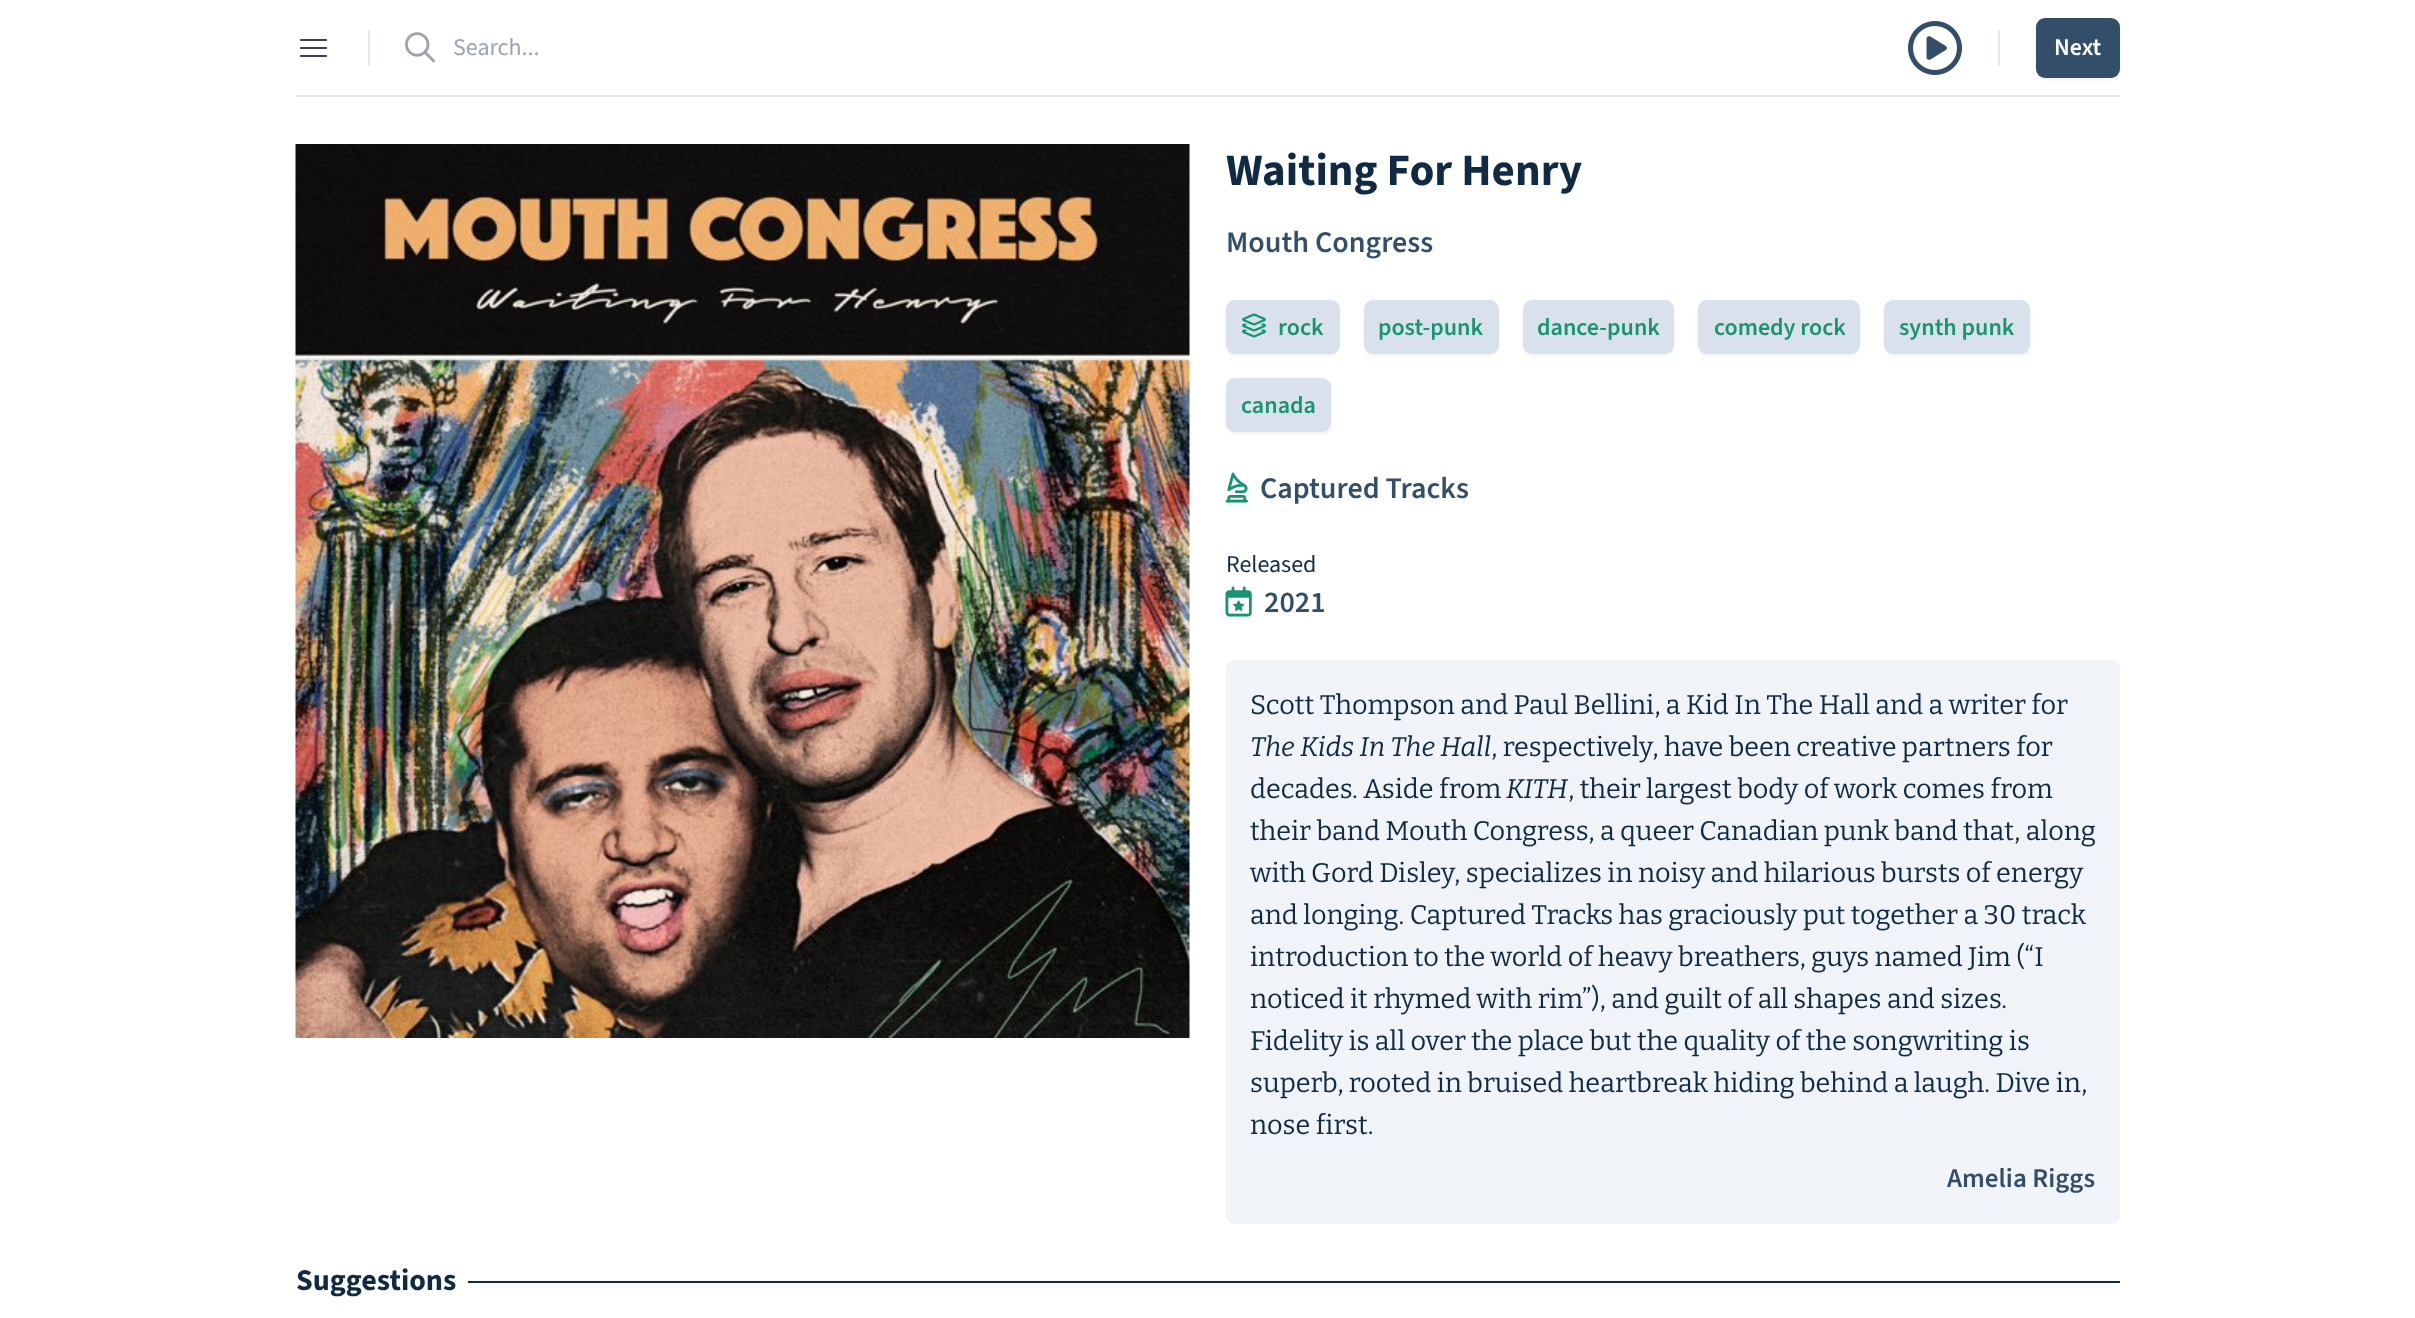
<!DOCTYPE html>
<meta charset="utf-8">
<style>body { margin: 0 } canvas { display: block }</style>
<canvas id="canvas" width="2415" height="1318"></canvas>
<img id="img1" src="images/1.png" hidden>
<img id="img2" src="images/2.png" hidden>
<img id="img3" src="images/3.png" hidden>
<img id="img4" src="images/4.png" hidden>
<img id="img5" src="images/5.png" hidden>
<img id="img6" src="images/6.png" hidden>
<script>
window.onload = function () {
    const canvas = document.getElementById('canvas');
    const context = canvas.getContext('2d');
    context.miterLimit = 4;
    context.fontKerning = 'normal';

    context.fillStyle = 'rgb(255, 255, 255)';
    context.fillRect(0, 0, 2415, 1318);
    context.fillStyle = 'rgb(229, 231, 235)';
    context.fillRect(296, 95, 1824, 2);
    context.beginPath();
    context.moveTo(301, 40);
    context.lineTo(326, 40);
    context.moveTo(301, 48);
    context.lineTo(326, 48);
    context.moveTo(301, 56);
    context.lineTo(326, 56);
    context.strokeStyle = 'rgb(55, 65, 81)';
    context.lineWidth = 2.2;
    context.lineCap = 'round';
    context.lineJoin = 'round';
    context.stroke();
    context.fillRect(368, 30, 2, 36);
    context.drawImage(document.getElementById('img1'), 405, 32, 30, 31);
    context.drawImage(document.getElementById('img2'), 1908, 21, 54, 54);
    context.fillRect(1998, 30, 2, 36);
    context.fillStyle = 'rgba(0, 0, 0, 0.05)';
    context.filter = 'blur(1.5px)';
    context.beginPath();
    context.roundRect(2036, 20, 84, 60, 9);
    context.fill();
    context.filter = 'none';
    context.fillStyle = 'rgb(51, 78, 104)';
    context.beginPath();
    context.roundRect(2036, 18, 84, 60, 9);
    context.fill();
    context.drawImage(document.getElementById('img3'), 295, 144, 895, 894);
    context.fillStyle = 'rgba(0, 0, 0, 0.05)';
    context.filter = 'blur(1.5px)';
    context.beginPath();
    context.roundRect(1226, 302, 114, 54, 9);
    context.fill();
    context.filter = 'none';
    context.fillStyle = 'rgb(217, 226, 236)';
    context.beginPath();
    context.roundRect(1226, 300, 114, 54, 9);
    context.fill();
    context.drawImage(document.getElementById('img4'), 1242, 313, 24, 25);
    context.fillStyle = 'rgba(0, 0, 0, 0.05)';
    context.filter = 'blur(1.5px)';
    context.beginPath();
    context.roundRect(1364, 302, 135, 54, 9);
    context.fill();
    context.filter = 'none';
    context.fillStyle = 'rgb(217, 226, 236)';
    context.beginPath();
    context.roundRect(1364, 300, 135, 54, 9);
    context.fill();
    context.fillStyle = 'rgba(0, 0, 0, 0.05)';
    context.filter = 'blur(1.5px)';
    context.beginPath();
    context.roundRect(1523, 302, 151, 54, 9);
    context.fill();
    context.filter = 'none';
    context.fillStyle = 'rgb(217, 226, 236)';
    context.beginPath();
    context.roundRect(1523, 300, 151, 54, 9);
    context.fill();
    context.fillStyle = 'rgba(0, 0, 0, 0.05)';
    context.filter = 'blur(1.5px)';
    context.beginPath();
    context.roundRect(1698, 302, 162, 54, 9);
    context.fill();
    context.filter = 'none';
    context.fillStyle = 'rgb(217, 226, 236)';
    context.beginPath();
    context.roundRect(1698, 300, 162, 54, 9);
    context.fill();
    context.fillStyle = 'rgba(0, 0, 0, 0.05)';
    context.filter = 'blur(1.5px)';
    context.beginPath();
    context.roundRect(1884, 302, 146, 54, 9);
    context.fill();
    context.filter = 'none';
    context.fillStyle = 'rgb(217, 226, 236)';
    context.beginPath();
    context.roundRect(1884, 300, 146, 54, 9);
    context.fill();
    context.fillStyle = 'rgba(0, 0, 0, 0.05)';
    context.filter = 'blur(1.5px)';
    context.beginPath();
    context.roundRect(1226, 380, 105, 54, 9);
    context.fill();
    context.filter = 'none';
    context.fillStyle = 'rgb(217, 226, 236)';
    context.beginPath();
    context.roundRect(1226, 378, 105, 54, 9);
    context.fill();
    context.drawImage(document.getElementById('img5'), 1225, 472, 23, 31);
    context.drawImage(document.getElementById('img6'), 1225, 586, 27, 31);
    context.fillStyle = 'rgb(240, 244, 248)';
    context.beginPath();
    context.roundRect(1226, 660, 894, 564, 9);
    context.fill();
    context.fillStyle = 'rgb(16, 42, 67)';
    context.fillRect(468, 1281, 1652, 2);
    context.font = '24px "Source Sans 3"';
    context.fillStyle = 'rgb(156, 163, 175)';
    context.fillText('Search...', 453, 55);
    context.font = '600 24px "Source Sans 3"';
    context.fillStyle = 'rgb(255, 255, 255)';
    context.fillText('Next', 2054, 55);
    context.font = 'bold 45px "Source Sans 3"';
    context.fillStyle = 'rgb(16, 42, 67)';
    context.fillText('Waiting For Henry', 1226, 185);
    context.font = '600 30px "Source Sans 3"';
    context.fillStyle = 'rgb(51, 78, 104)';
    context.fillText('Mouth Congress', 1226, 252);
    context.font = '600 24px "Source Sans 3"';
    context.fillStyle = 'rgb(25, 148, 115)';
    context.fillText('rock', 1278, 335);
    context.fillText('post-punk', 1378, 335);
    context.fillText('dance-punk', 1537, 335);
    context.fillText('comedy rock', 1714, 335);
    context.fillText('synth punk', 1899, 335);
    context.fillText('canada', 1241, 413);
    context.font = '600 30px "Source Sans 3"';
    context.fillStyle = 'rgb(51, 78, 104)';
    context.fillText('Captured Tracks', 1260, 498);
    context.font = '24px "Source Sans 3"';
    context.fillStyle = 'rgb(16, 42, 67)';
    context.fillText('Released', 1226, 572);
    context.font = '600 30px "Source Sans 3"';
    context.fillStyle = 'rgb(51, 78, 104)';
    context.fillText('2021', 1264, 612);
    context.font = '27px Bitter';
    context.fillStyle = 'rgb(16, 42, 67)';
    context.fillText('Scott Thompson and Paul Bellini, a Kid In The Hall and a writer for', 1250, 714);
    context.font = 'italic 27px Bitter';
    context.fillText('The Kids In The Hall', 1250, 756);
    context.font = '27px Bitter';
    context.fillText(', respectively, have been creative partners for', 1491, 756);
    context.fillText('decades. Aside from', 1250, 798);
    context.font = 'italic 27px Bitter';
    context.fillText('KITH', 1506, 798);
    context.font = '27px Bitter';
    context.fillText(', their largest body of work comes from', 1568, 798);
    context.fillText('their band Mouth Congress, a queer Canadian punk band that, along', 1250, 840);
    context.fillText('with Gord Disley, specializes in noisy and hilarious bursts of energy', 1250, 882);
    context.fillText('and longing. Captured Tracks has graciously put together a 30 track', 1250, 924);
    context.fillText('introduction to the world of heavy breathers, guys named Jim (“I', 1250, 966);
    context.fillText('noticed it rhymed with rim”), and guilt of all shapes and sizes.', 1250, 1008);
    context.fillText('Fidelity is all over the place but the quality of the songwriting is', 1250, 1050);
    context.fillText('superb, rooted in bruised heartbreak hiding behind a laugh. Dive in,', 1250, 1092);
    context.fillText('nose first.', 1250, 1134);
    context.font = '600 27px "Source Sans 3"';
    context.fillStyle = 'rgb(51, 78, 104)';
    context.fillText('Amelia Riggs', 1947, 1187);
    context.font = 'bold 30px "Source Sans 3"';
    context.fillStyle = 'rgb(16, 42, 67)';
    context.fillText('Suggestions', 296, 1290);
};
</script>
